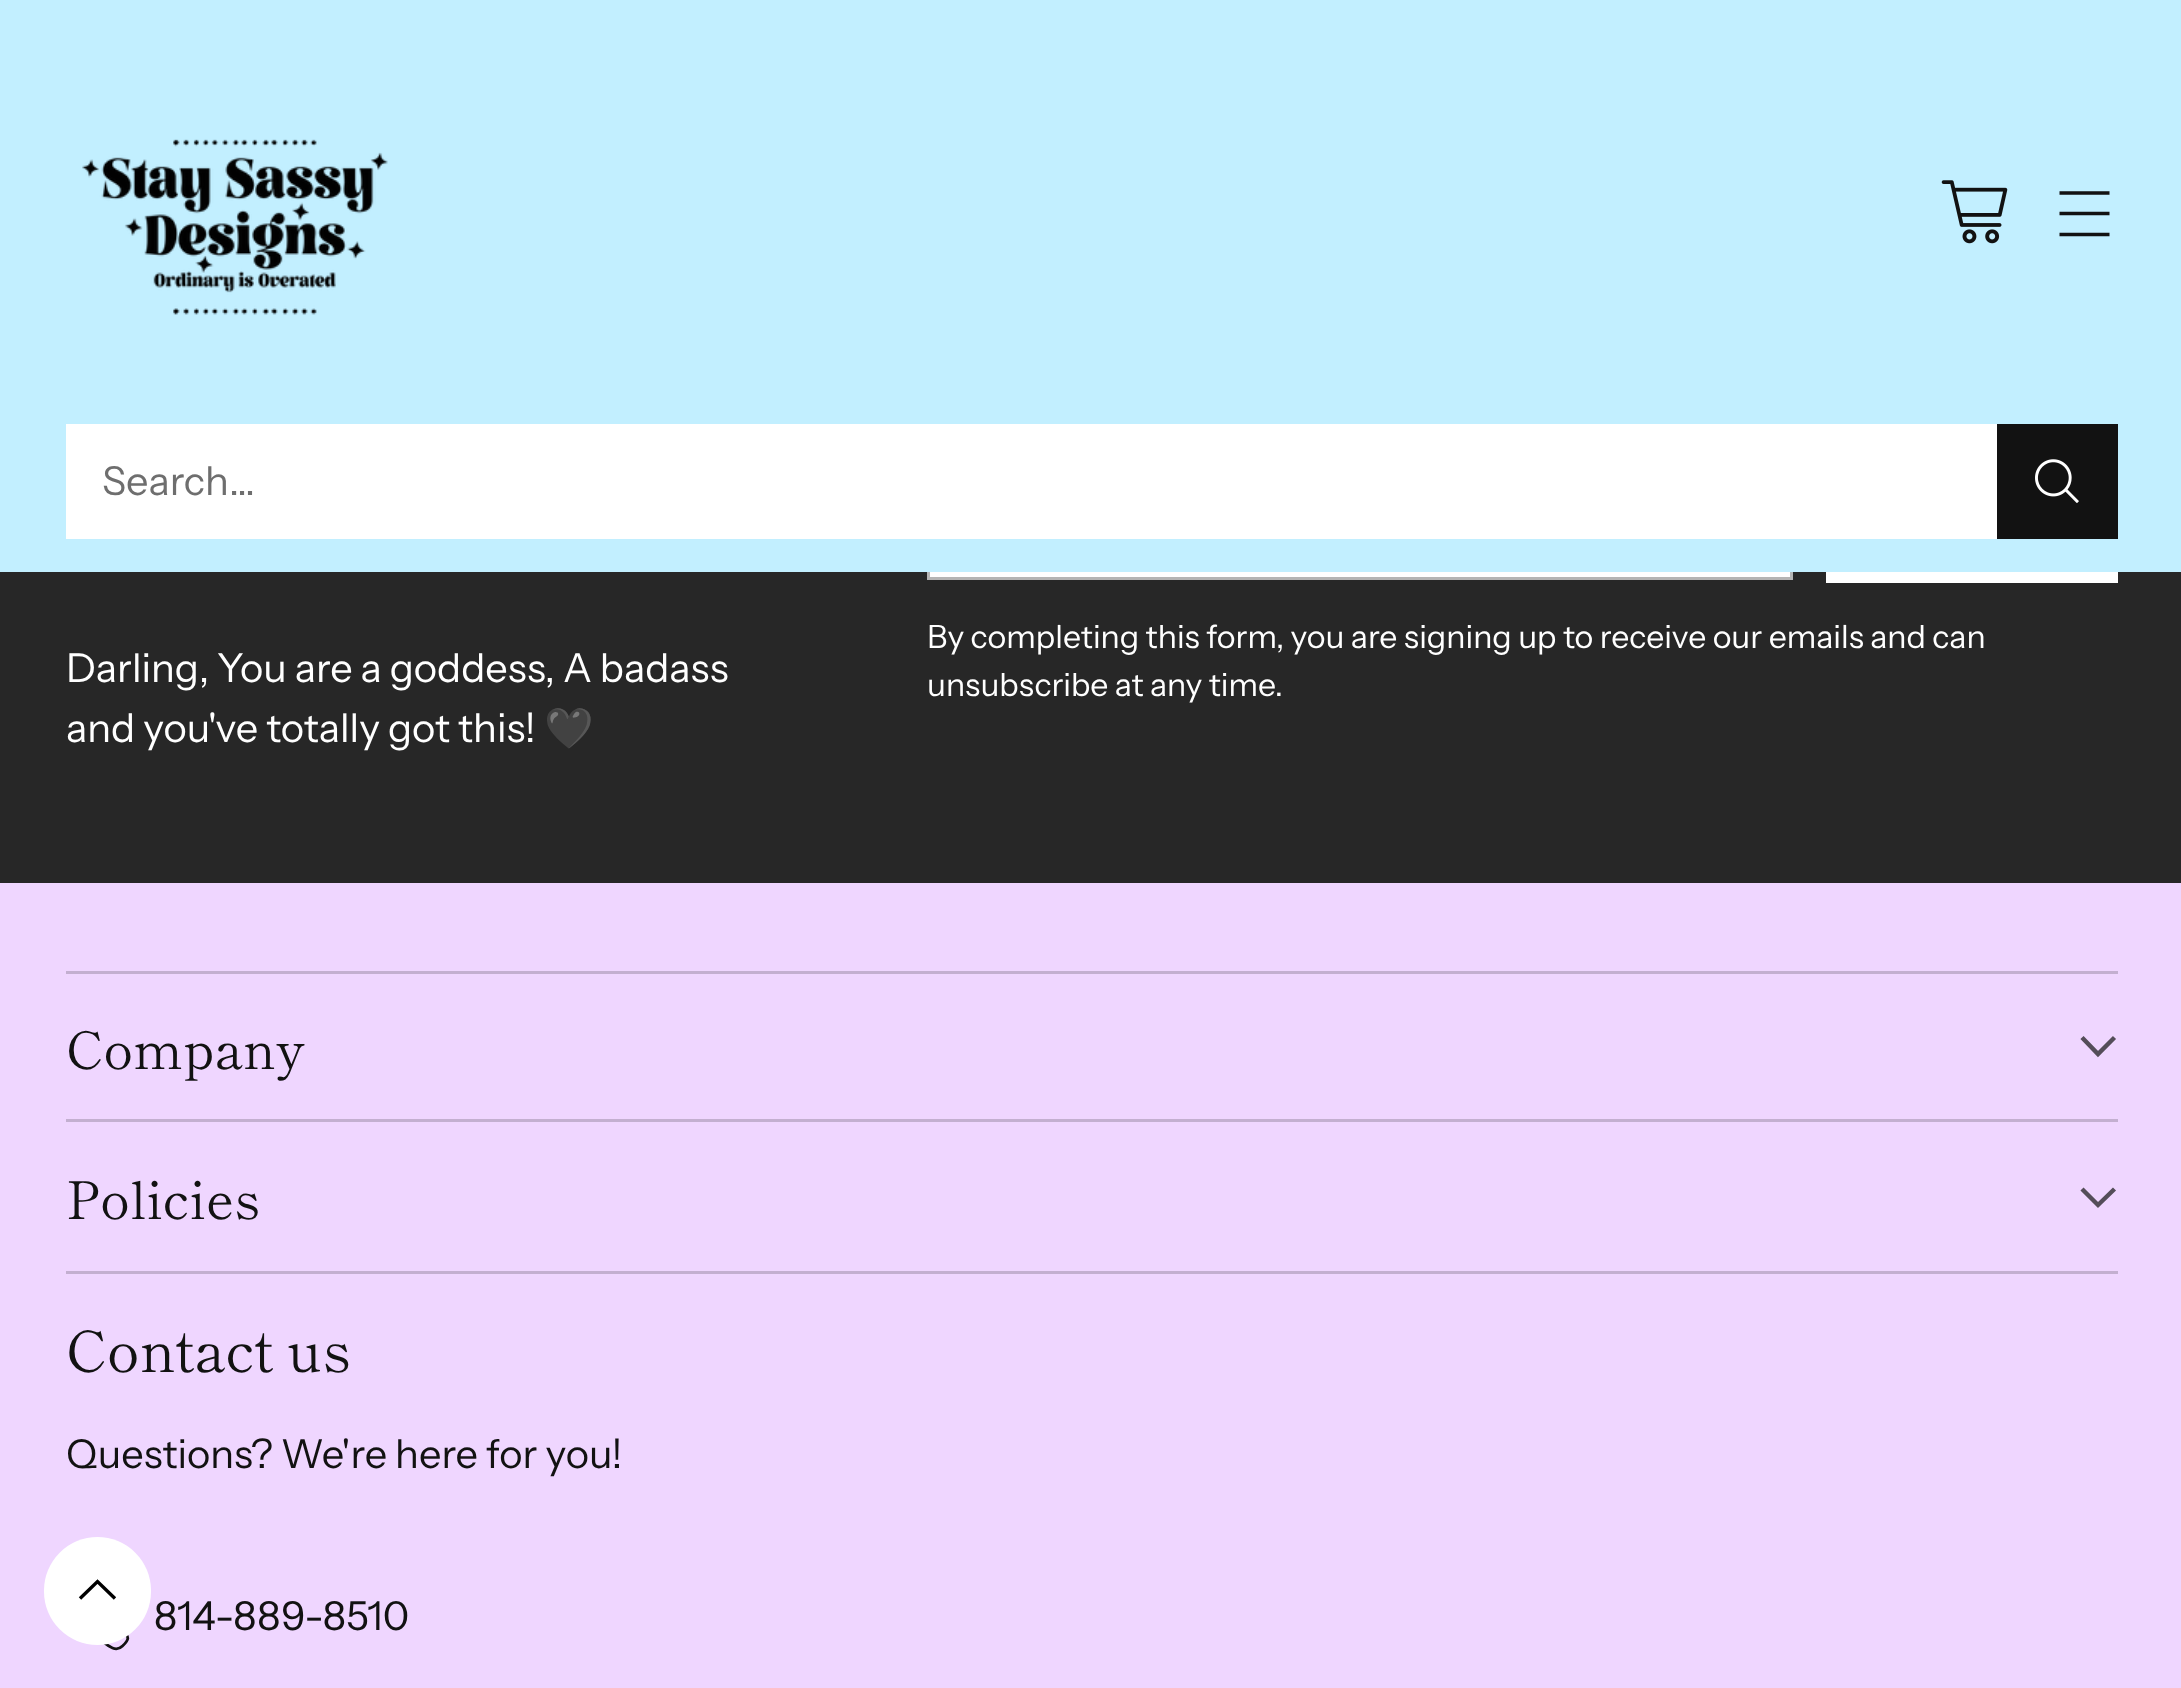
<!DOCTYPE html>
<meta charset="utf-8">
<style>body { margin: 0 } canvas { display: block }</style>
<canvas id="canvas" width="2181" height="1688"></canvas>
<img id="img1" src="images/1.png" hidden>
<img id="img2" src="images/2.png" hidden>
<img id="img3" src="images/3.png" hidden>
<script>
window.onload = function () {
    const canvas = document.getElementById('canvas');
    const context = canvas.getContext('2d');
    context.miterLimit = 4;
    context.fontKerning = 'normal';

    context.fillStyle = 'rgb(239, 214, 255)';
    context.fillRect(0, 0, 2181, 1688);
    context.fillStyle = 'rgb(39, 39, 39)';
    context.fillRect(0, 572, 2181, 311);
    context.fillStyle = 'rgb(255, 255, 255)';
    context.fillRect(930, 572, 860, 5);
    context.strokeStyle = 'rgb(180, 180, 180)';
    context.lineWidth = 3;
    context.strokeRect(928.5, 460.5, 863, 118);
    context.fillStyle = 'rgb(194, 239, 255)';
    context.fillRect(0, 0, 2181, 572);
    context.drawImage(document.getElementById('img1'), 82, 139, 306, 176);
    context.drawImage(document.getElementById('img2'), 1941, 180, 67, 64);
    context.beginPath();
    context.moveTo(2059.5, 213.5);
    context.lineTo(2109.5, 213.5);
    context.moveTo(2059.5, 193);
    context.lineTo(2109.5, 193);
    context.moveTo(2059.5, 234.5);
    context.lineTo(2109.5, 234.5);
    context.strokeStyle = 'rgb(18, 18, 18)';
    context.lineWidth = 3.6;
    context.stroke();
    context.strokeStyle = 'rgb(255, 255, 255)';
    context.lineWidth = 3;
    context.strokeRect(67.5, 425.5, 2049, 112);
    context.fillStyle = 'rgb(255, 255, 255)';
    context.fillRect(69, 427, 1928, 109);
    context.fillStyle = 'rgb(18, 18, 18)';
    context.fillRect(1997, 424, 121, 115);
    context.drawImage(document.getElementById('img3'), 2035, 459, 44, 44);
    context.fillStyle = 'rgb(255, 255, 255)';
    context.fillRect(1826, 572, 292, 11);
    context.fillStyle = 'rgb(195, 175, 208)';
    context.fillRect(66, 971, 2052, 3);
    context.fillRect(66, 1119, 2052, 3);
    context.beginPath();
    context.moveTo(2082, 1037.5);
    context.lineTo(2098, 1054);
    context.lineTo(2114.5, 1037.5);
    context.strokeStyle = 'rgb(84, 77, 89)';
    context.lineWidth = 4.4;
    context.stroke();
    context.fillRect(66, 1271, 2052, 3);
    context.beginPath();
    context.moveTo(2082, 1189);
    context.lineTo(2098, 1205);
    context.lineTo(2114.5, 1189);
    context.stroke();
    context.beginPath();
    context.moveTo(91.5, 1607.5);
    context.bezierCurveTo(95.5, 1603.5, 91, 1599, 88, 1596);
    context.bezierCurveTo(83.5, 1591.5, 80.5, 1588.5, 75, 1593.5);
    context.lineTo(71.5, 1597.5);
    context.bezierCurveTo(69.5, 1600.5, 69.5, 1604.5, 71.5, 1607.5);
    context.bezierCurveTo(77, 1615.5, 82.5, 1622.5, 89.5, 1629.5);
    context.bezierCurveTo(95, 1635, 105.5, 1645, 112.5, 1648);
    context.bezierCurveTo(116, 1649.5, 120, 1648.5, 122.5, 1646);
    context.bezierCurveTo(129.5, 1639.5, 129.5, 1637, 123, 1630.5);
    context.bezierCurveTo(117.5, 1625, 115, 1623.5, 109, 1629.5);
    context.bezierCurveTo(101.5, 1623.5, 95, 1617, 89, 1610);
    context.closePath();
    context.strokeStyle = 'rgb(18, 18, 18)';
    context.lineWidth = 2.8;
    context.lineCap = 'round';
    context.lineJoin = 'round';
    context.stroke();
    context.fillStyle = 'rgb(255, 255, 255)';
    context.beginPath();
    context.roundRect(44, 1537, 107, 108, 53.5);
    context.fill();
    context.beginPath();
    context.moveTo(115, 1598.5);
    context.lineTo(97.5, 1581.5);
    context.lineTo(80, 1598.5);
    context.strokeStyle = 'rgb(0, 0, 0)';
    context.lineWidth = 3.4;
    context.lineCap = 'butt';
    context.lineJoin = 'miter';
    context.stroke();
    context.font = '39.8px Instrument Sans';
    context.fillStyle = 'rgb(110, 110, 110)';
    context.fillText('Search…', 102, 495);
    context.fillStyle = 'rgb(255, 255, 255)';
    context.fillText('Darling, You are a goddess, A badass', 66, 682);
    context.fillText('and you\'ve totally got this!', 66, 742);
    context.font = '39.8px Noto Color Emoji';
    context.fillText('🖤', 544, 742);
    context.font = '32.05px Instrument Sans';
    context.fillText('By completing this form, you are signing up to receive our emails and can', 927, 648);
    context.fillText('unsubscribe at any time.', 927, 696);
    context.font = '52px Shippori Mincho';
    context.fillStyle = 'rgb(18, 18, 18)';
    context.fillText('Company', 66, 1069);
    context.fillText('Policies', 66, 1219);
    context.font = '57px Shippori Mincho';
    context.fillText('Contact us', 66, 1372);
    context.font = '39.8px Instrument Sans';
    context.fillText('Questions? We\'re here for you!', 66, 1468);
    context.fillText('814-889-8510', 154, 1630);
};
</script>
